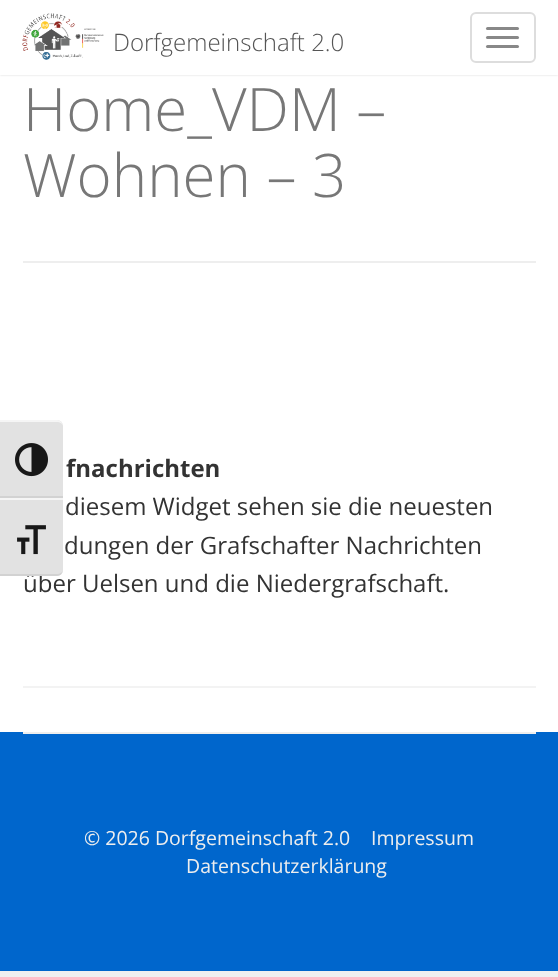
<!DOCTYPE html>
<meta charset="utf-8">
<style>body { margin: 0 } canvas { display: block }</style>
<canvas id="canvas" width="558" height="977"></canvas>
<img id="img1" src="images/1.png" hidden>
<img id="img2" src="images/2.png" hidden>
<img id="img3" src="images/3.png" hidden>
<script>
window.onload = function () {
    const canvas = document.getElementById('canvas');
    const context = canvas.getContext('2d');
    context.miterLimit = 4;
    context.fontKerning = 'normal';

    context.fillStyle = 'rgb(240, 240, 240)';
    context.fillRect(0, 0, 558, 977);
    context.fillStyle = 'rgb(255, 255, 255)';
    context.fillRect(0, 75, 558, 657);
    context.fillStyle = 'rgba(0, 0, 0, 0.15)';
    context.filter = 'blur(1px)';
    context.beginPath();
    context.rect(0, 0, 558, 75);
    context.fill();
    context.filter = 'none';
    context.fillStyle = 'rgb(255, 255, 255)';
    context.fillRect(0, 0, 558, 75);
    context.drawImage(document.getElementById('img1'), 22, 13, 82, 47);
    context.beginPath();
    context.roundRect(471, 13, 64, 49, 5);
    context.strokeStyle = 'rgb(221, 221, 221)';
    context.lineWidth = 2;
    context.stroke();
    context.fillStyle = 'rgb(136, 136, 136)';
    context.beginPath();
    context.roundRect(486, 27, 33, 3, 1.5);
    context.fill();
    context.beginPath();
    context.roundRect(486, 36, 33, 3, 1.5);
    context.fill();
    context.beginPath();
    context.roundRect(486, 45, 33, 3, 1.5);
    context.fill();
    context.fillStyle = 'rgb(243, 243, 243)';
    context.fillRect(23, 686, 513, 2);
    context.fillStyle = 'rgb(238, 238, 238)';
    context.fillRect(23, 261, 513, 2);
    context.fillStyle = 'rgb(0, 102, 204)';
    context.fillRect(0, 732, 558, 239);
    context.fillStyle = 'rgb(238, 238, 238)';
    context.fillRect(23, 732, 513, 2);
    context.fillStyle = 'rgb(226, 226, 226)';
    context.beginPath();
    context.roundRect(0, 420, 63, 78, [0, 6, 0, 0]);
    context.fill();
    context.fillStyle = 'rgb(245, 245, 245)';
    context.beginPath();
    context.moveTo(0, 420);
    context.lineTo(0, 422);
    context.lineTo(57, 422);
    context.bezierCurveTo(60, 422, 63, 424, 63, 426);
    context.bezierCurveTo(63, 423, 60, 420, 57, 420);
    context.closePath();
    context.fill();
    context.fillStyle = 'rgb(210, 210, 210)';
    context.fillRect(0, 496, 63, 2);
    context.drawImage(document.getElementById('img2'), 15, 443, 33, 34);
    context.font = '300 24px Open Sans';
    context.fillStyle = 'rgb(85, 85, 85)';
    context.fillText('Dorfgemeinschaft 2.0', 113, 51);
    context.font = '300 60px Open Sans';
    context.fillStyle = 'rgb(119, 119, 119)';
    context.fillText('Home_VDM –', 23, 131);
    context.fillText('Wohnen – 3', 23, 197);
    context.font = 'bold 24px Open Sans';
    context.fillStyle = 'rgb(51, 51, 51)';
    context.fillText('fnachrichten', 66, 477);
    context.font = '24px Open Sans';
    context.fillText('diesem Widget sehen sie die neuesten', 65, 515);
    context.fillText('dungen der Grafschafter Nachrichten', 64, 554);
    context.fillText('über Uelsen und die Niedergrafschaft.', 23, 592);
    context.font = '19.5px Open Sans';
    context.fillStyle = 'rgb(238, 238, 238)';
    context.fillText('© 2026 Dorfgemeinschaft 2.0', 84, 845);
    context.fillText('Impressum', 371, 845);
    context.fillText('Datenschutzerklärung', 186, 873);
    context.fillStyle = 'rgb(226, 226, 226)';
    context.beginPath();
    context.roundRect(0, 498, 63, 78, [0, 0, 6, 0]);
    context.fill();
    context.fillStyle = 'rgb(245, 245, 245)';
    context.fillRect(0, 498, 63, 2);
    context.fillStyle = 'rgb(210, 210, 210)';
    context.beginPath();
    context.moveTo(0, 574);
    context.lineTo(0, 576);
    context.lineTo(57, 576);
    context.bezierCurveTo(60, 576, 63, 573, 63, 570);
    context.bezierCurveTo(63, 572, 60, 574, 57, 574);
    context.closePath();
    context.fill();
    context.drawImage(document.getElementById('img3'), 17, 525, 29, 30);
};
</script>
